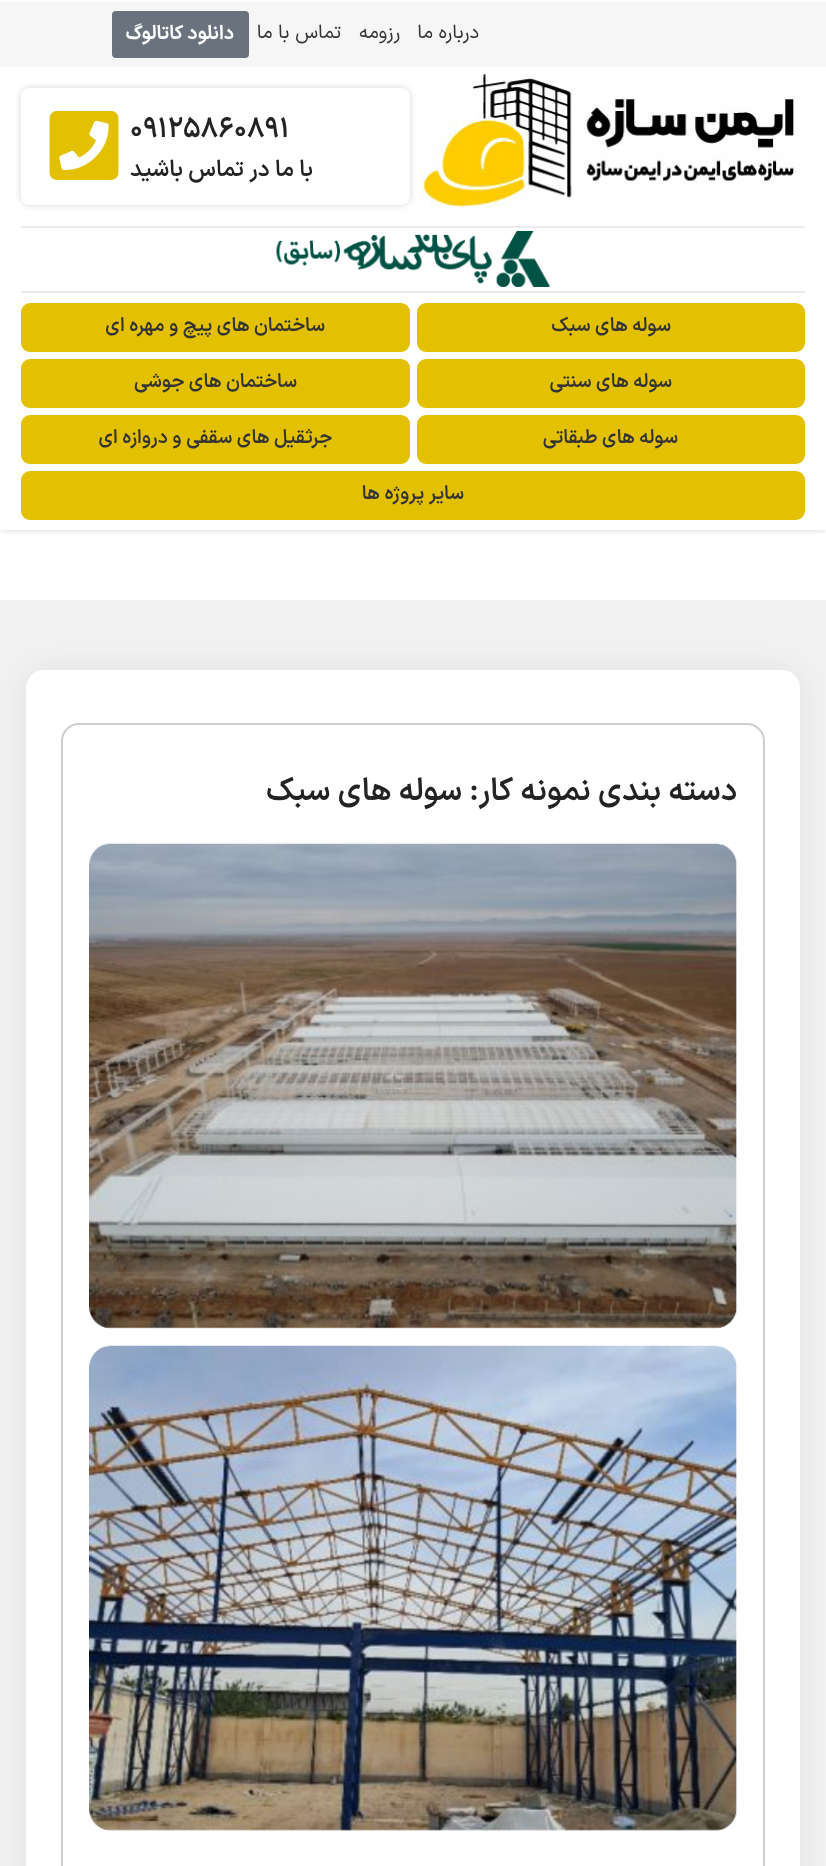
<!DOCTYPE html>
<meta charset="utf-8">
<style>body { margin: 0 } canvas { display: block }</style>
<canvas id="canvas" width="826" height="1866"></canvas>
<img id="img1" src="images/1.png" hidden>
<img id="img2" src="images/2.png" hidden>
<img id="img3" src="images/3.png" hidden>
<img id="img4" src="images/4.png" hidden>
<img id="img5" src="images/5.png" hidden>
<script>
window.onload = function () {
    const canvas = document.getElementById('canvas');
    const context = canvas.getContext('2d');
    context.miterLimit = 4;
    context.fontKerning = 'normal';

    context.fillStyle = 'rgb(255, 255, 255)';
    context.fillRect(0, 0, 826, 1866);
    context.save();
    context.beginPath();
    context.rect(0, 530, 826, 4);
    context.clip();
    context.fillStyle = 'rgba(0, 0, 0, 0.16)';
    context.filter = 'blur(3.5px)';
    context.beginPath();
    context.rect(0, 65, 826, 465);
    context.fill();
    context.filter = 'none';
    context.restore();
    context.fillStyle = 'rgb(246, 246, 246)';
    context.fillRect(0, 2, 826, 65);
    context.fillStyle = 'rgb(105, 114, 125)';
    context.beginPath();
    context.roundRect(112, 11, 137, 47, 4);
    context.fill();
    context.drawImage(document.getElementById('img1'), 420, 74, 375, 136);
    context.save();
    context.beginPath();
    context.moveTo(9, 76);
    context.lineTo(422, 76);
    context.lineTo(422, 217);
    context.lineTo(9, 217);
    context.closePath();
    context.moveTo(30, 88);
    context.lineTo(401, 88);
    context.bezierCurveTo(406, 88, 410, 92, 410, 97);
    context.lineTo(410, 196);
    context.bezierCurveTo(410, 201, 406, 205, 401, 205);
    context.lineTo(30, 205);
    context.bezierCurveTo(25, 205, 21, 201, 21, 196);
    context.lineTo(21, 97);
    context.bezierCurveTo(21, 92, 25, 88, 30, 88);
    context.closePath();
    context.clip('evenodd');
    context.fillStyle = 'rgba(0, 0, 0, 0.16)';
    context.filter = 'blur(3.5px)';
    context.beginPath();
    context.roundRect(21, 88, 389, 117, 9);
    context.fill();
    context.filter = 'none';
    context.restore();
    context.drawImage(document.getElementById('img2'), 49, 111, 70, 69);
    context.fillStyle = 'rgb(236, 234, 234)';
    context.fillRect(21, 226, 784, 2);
    context.drawImage(document.getElementById('img3'), 276, 231, 274, 56);
    context.fillRect(21, 291, 784, 2);
    context.fillStyle = 'rgb(227, 192, 0)';
    context.beginPath();
    context.roundRect(417, 303, 388, 49, 9);
    context.fill();
    context.beginPath();
    context.roundRect(21, 303, 389, 49, 9);
    context.fill();
    context.beginPath();
    context.roundRect(417, 359, 388, 49, 9);
    context.fill();
    context.beginPath();
    context.roundRect(21, 359, 389, 49, 9);
    context.fill();
    context.beginPath();
    context.roundRect(417, 415, 388, 49, 9);
    context.fill();
    context.beginPath();
    context.roundRect(21, 415, 389, 49, 9);
    context.fill();
    context.beginPath();
    context.roundRect(21, 471, 784, 49, 9);
    context.fill();
    context.fillStyle = 'rgb(242, 242, 242)';
    context.fillRect(0, 600, 826, 1266);
    context.fillStyle = 'rgba(0, 0, 0, 0.07)';
    context.filter = 'blur(17.5px)';
    context.beginPath();
    context.roundRect(26, 670, 774, 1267, 18);
    context.fill();
    context.filter = 'none';
    context.fillStyle = 'rgb(255, 255, 255)';
    context.beginPath();
    context.roundRect(26, 670, 774, 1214, 18);
    context.fill();
    context.beginPath();
    context.roundRect(62, 724, 702, 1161, 17);
    context.strokeStyle = 'rgb(206, 206, 206)';
    context.lineWidth = 2;
    context.stroke();
    context.drawImage(document.getElementById('img4'), 89, 843, 648, 486);
    context.drawImage(document.getElementById('img5'), 89, 1345, 648, 486);
    context.direction = 'rtl';
    context.font = '19.25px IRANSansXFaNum';
    context.fillStyle = 'rgb(51, 51, 51)';
    context.fillText('درباره ما', 479, 38);
    context.fillText('رزومه', 400, 38);
    context.fillText('تماس با ما', 341, 38);
    context.font = 'bold 19.25px IRANSansXFaNum';
    context.fillStyle = 'rgb(255, 255, 255)';
    context.fillText('دانلود کاتالوگ', 234, 39);
    context.direction = 'ltr';
    context.font = '600 28px IRANSansXFaNum';
    context.fillStyle = 'rgb(35, 35, 35)';
    context.fillText('09125860891', 130, 137);
    context.direction = 'rtl';
    context.font = '600 22.75px IRANSansXFaNum';
    context.fillText('با ما در تماس باشید', 313, 176);
    context.font = '600 19.25px IRANSansXFaNum';
    context.fillStyle = 'rgb(51, 51, 51)';
    context.fillText('سوله های سبک', 671, 331);
    context.fillText('ساختمان های پیچ و مهره ای', 325, 331);
    context.fillText('سوله های سنتی', 672, 387);
    context.fillText('ساختمان های جوشی', 297, 387);
    context.fillText('سوله های طبقاتی', 678, 443);
    context.fillText('جرثقیل های سقفی و دروازه ای', 332, 443);
    context.fillText('سایر پروژه ها', 464, 499);
    context.font = '600 31.5px IRANSansXFaNum';
    context.fillStyle = 'rgb(35, 35, 35)';
    context.fillText('دسته بندی نمونه کار: سوله های سبک', 737, 800);
};
</script>
